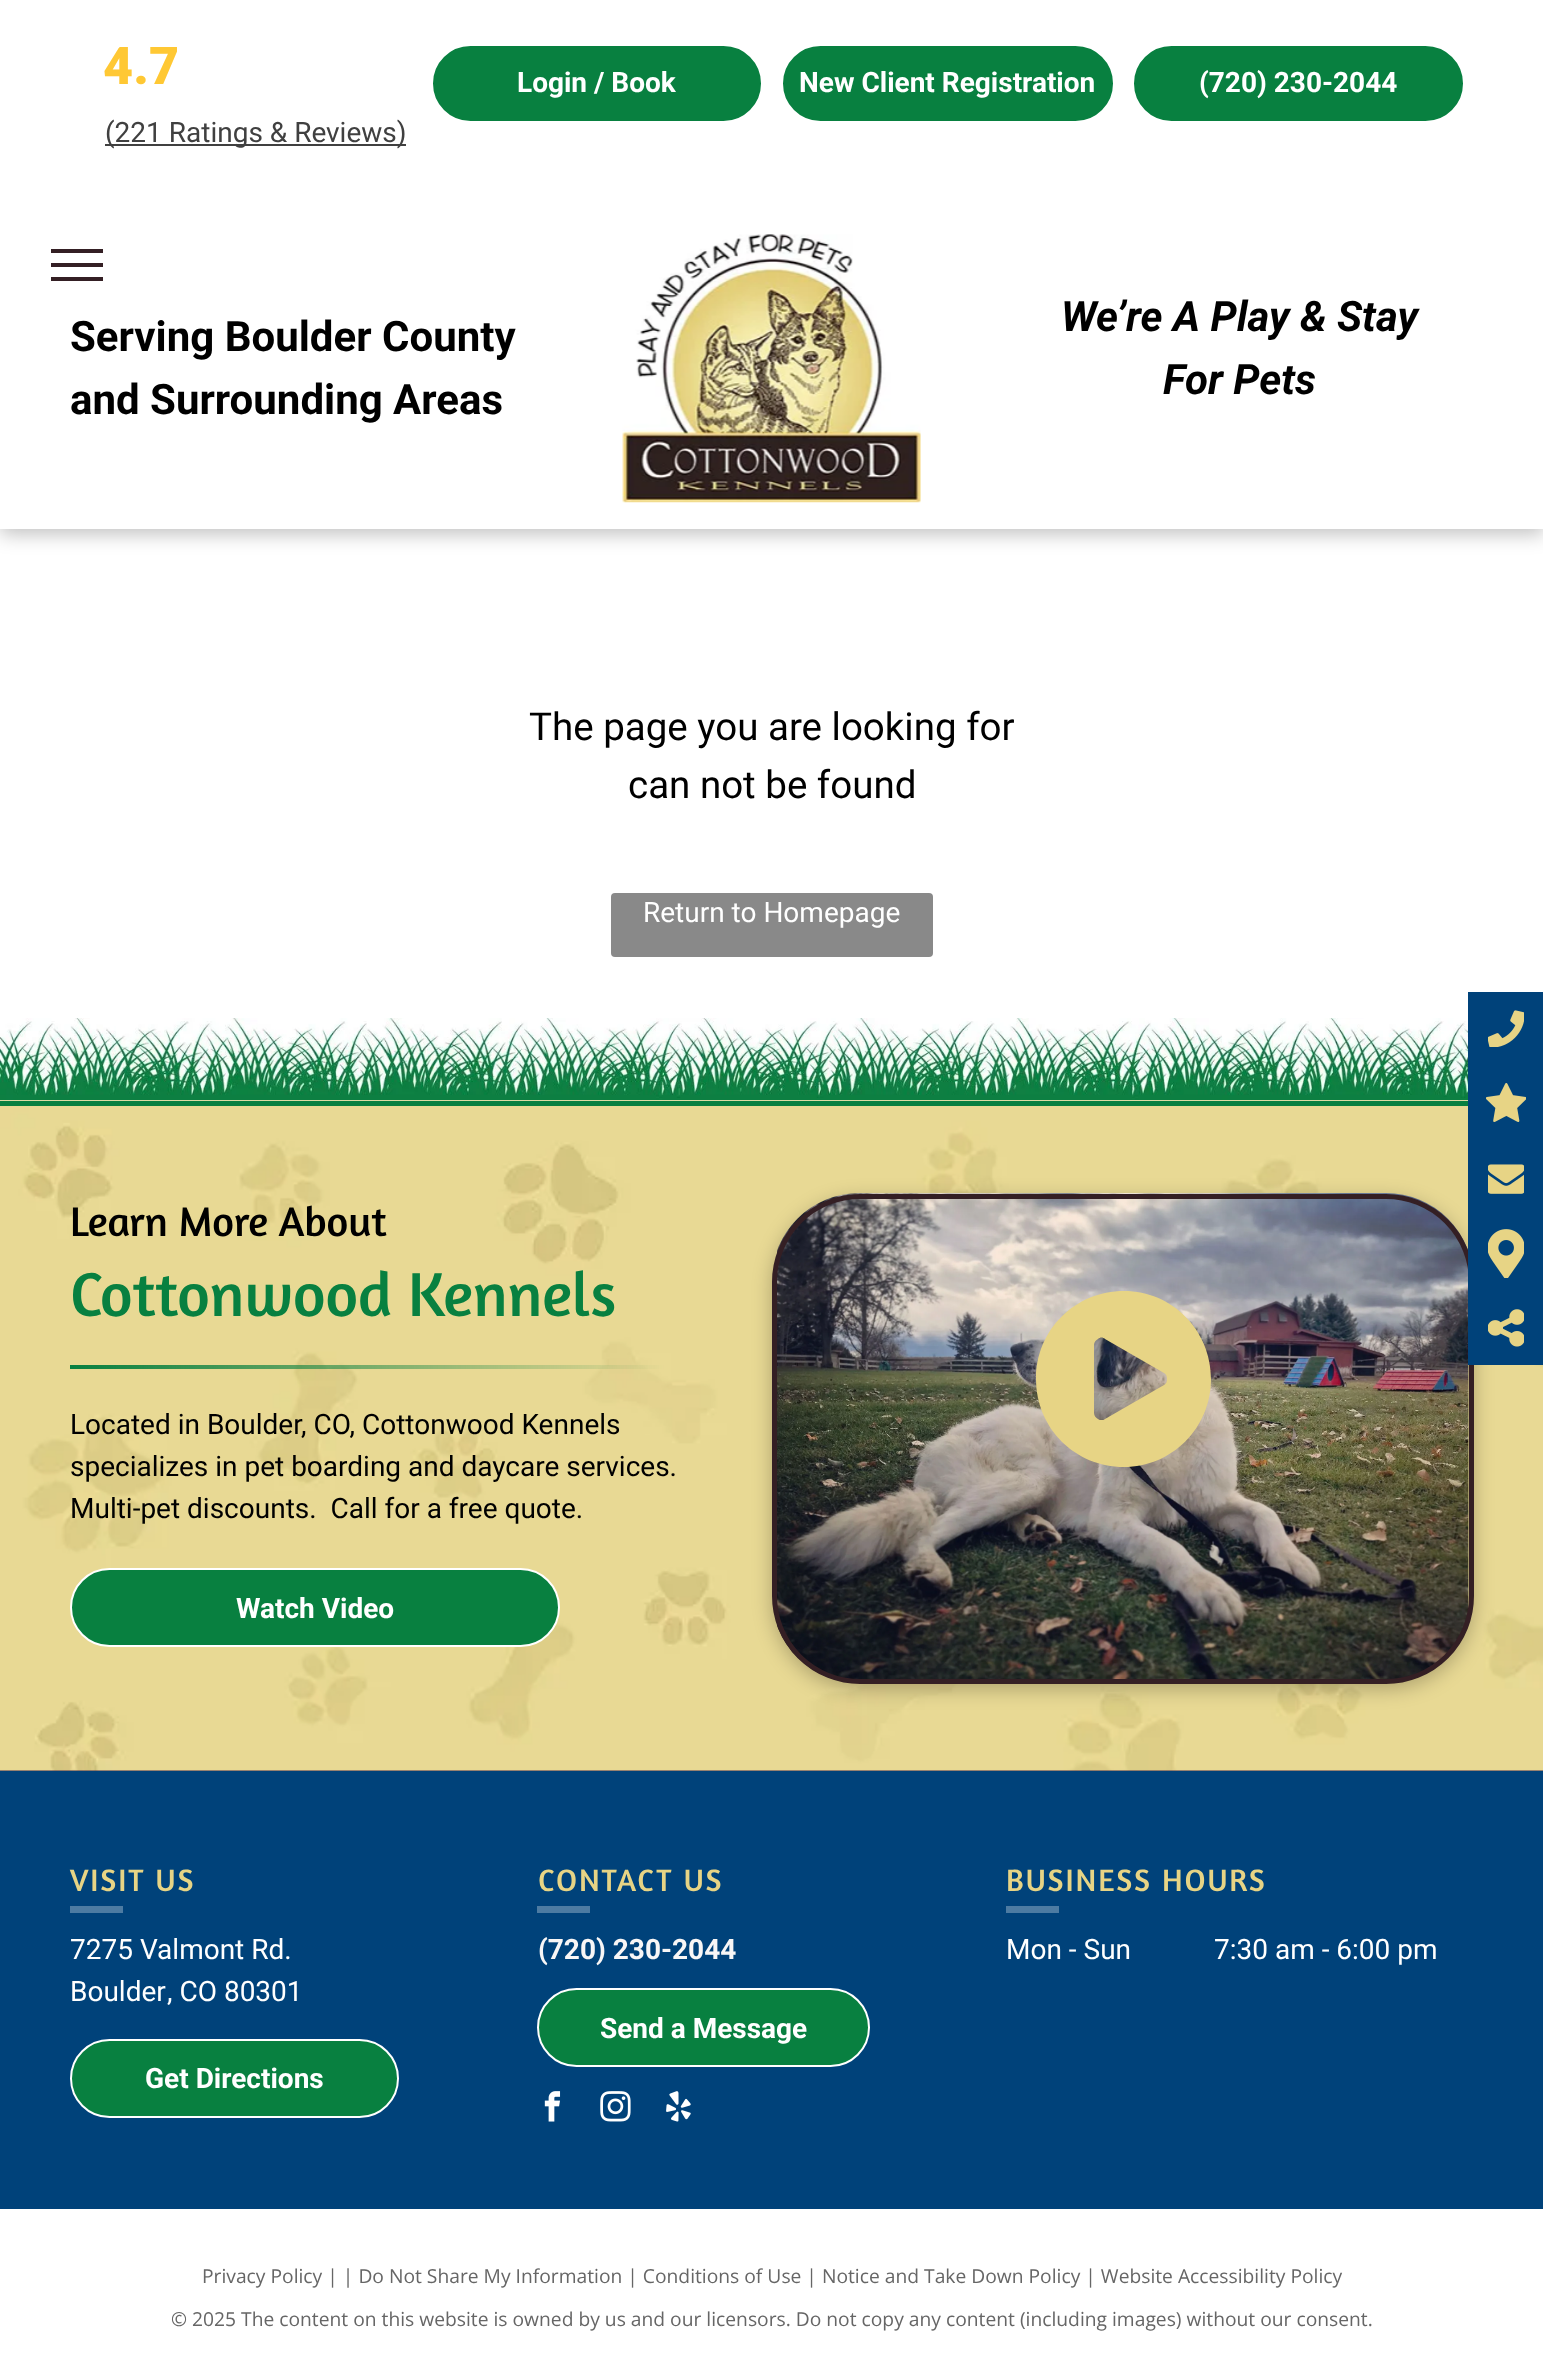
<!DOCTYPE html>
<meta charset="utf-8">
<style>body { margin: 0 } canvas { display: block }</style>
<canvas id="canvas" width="1543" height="2357"></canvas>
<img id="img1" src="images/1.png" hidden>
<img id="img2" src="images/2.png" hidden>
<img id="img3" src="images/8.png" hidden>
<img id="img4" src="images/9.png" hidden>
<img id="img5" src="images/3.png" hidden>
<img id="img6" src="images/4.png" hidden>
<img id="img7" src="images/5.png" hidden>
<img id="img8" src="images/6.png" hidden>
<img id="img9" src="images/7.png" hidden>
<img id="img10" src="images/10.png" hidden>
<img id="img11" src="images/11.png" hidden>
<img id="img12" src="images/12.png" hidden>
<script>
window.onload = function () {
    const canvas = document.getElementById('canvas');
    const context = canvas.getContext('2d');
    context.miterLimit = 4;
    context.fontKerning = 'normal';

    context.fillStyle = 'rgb(255, 255, 255)';
    context.fillRect(0, 0, 1543, 2357);
    context.fillStyle = 'rgba(0, 0, 0, 0.25)';
    context.filter = 'blur(9.5px)';
    context.beginPath();
    context.rect(0, 5, 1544, 529);
    context.fill();
    context.filter = 'none';
    context.fillStyle = 'rgb(255, 255, 255)';
    context.fillRect(0, 0, 1543, 529);
    context.fillStyle = 'rgb(64, 64, 64)';
    context.fillRect(105, 144, 301, 2);
    context.fillStyle = 'rgb(8, 128, 64)';
    context.beginPath();
    context.roundRect(432, 45, 330, 77, 38.5);
    context.fill();
    context.strokeStyle = 'rgb(255, 255, 255)';
    context.lineWidth = 2;
    context.stroke();
    context.beginPath();
    context.roundRect(782, 45, 332, 77, 38.5);
    context.fill();
    context.stroke();
    context.beginPath();
    context.roundRect(1133, 45, 331, 77, 38.5);
    context.fill();
    context.stroke();
    context.drawImage(document.getElementById('img1'), 622, 234, 299, 269);
    context.fillStyle = 'rgb(52, 31, 36)';
    context.fillRect(51, 249, 52, 4);
    context.fillRect(51, 263, 52, 4);
    context.fillRect(51, 277, 52, 4);
    context.fillStyle = 'rgb(137, 137, 137)';
    context.beginPath();
    context.roundRect(611, 893, 322, 64, 4);
    context.fill();
    context.drawImage(document.getElementById('img2'), 0, 1018, 1468, 83);
    context.fillStyle = 'rgb(74, 43, 74)';
    context.fillRect(0, 1770, 1543, 1);
    context.drawImage(document.getElementById('img3'), 0, 1100, 1543, 671);
    context.fillStyle = 'rgba(0, 0, 0, 0.25)';
    context.filter = 'blur(9.5px)';
    context.beginPath();
    context.roundRect(772, 1199, 702, 490, 88);
    context.fill();
    context.filter = 'none';
    context.drawImage(document.getElementById('img4'), 777, 1193, 692, 489);
    context.beginPath();
    context.roundRect(774.5, 1196.5, 697, 485, 85.5);
    context.strokeStyle = 'rgb(52, 31, 36)';
    context.lineWidth = 5;
    context.stroke();
    context.fillStyle = 'rgb(0, 66, 122)';
    context.fillRect(1468, 992, 75, 373);
    context.drawImage(document.getElementById('img5'), 1488, 1010, 36, 37);
    context.drawImage(document.getElementById('img6'), 1486, 1083, 40, 39);
    context.drawImage(document.getElementById('img7'), 1488, 1164, 36, 30);
    context.drawImage(document.getElementById('img8'), 1488, 1229, 36, 49);
    context.drawImage(document.getElementById('img9'), 1488, 1309, 36, 38);
    context.fillStyle = 'rgb(8, 128, 64)';
    context.fillRect(0, 1101, 1468, 5);
    context.beginPath();
    context.roundRect(71, 1569, 488, 77, 38.5);
    context.fill();
    context.strokeStyle = 'rgb(255, 255, 255)';
    context.lineWidth = 2;
    context.stroke();
    context.fillStyle = 'rgb(231, 212, 133)';
    context.beginPath();
    context.moveTo(1124, 1291);
    context.bezierCurveTo(1075, 1291, 1036, 1330, 1036, 1379);
    context.bezierCurveTo(1036, 1428, 1075, 1467, 1124, 1467);
    context.bezierCurveTo(1172, 1467, 1211, 1428, 1211, 1379);
    context.bezierCurveTo(1211, 1330, 1172, 1291, 1124, 1291);
    context.closePath();
    context.moveTo(1164, 1385);
    context.lineTo(1105, 1419);
    context.bezierCurveTo(1104, 1420, 1103, 1420, 1102, 1420);
    context.bezierCurveTo(1100, 1420, 1099, 1420, 1098, 1419);
    context.bezierCurveTo(1096, 1418, 1094, 1416, 1094, 1413);
    context.lineTo(1094, 1345);
    context.bezierCurveTo(1094, 1342, 1096, 1340, 1098, 1339);
    context.bezierCurveTo(1100, 1337, 1103, 1337, 1105, 1339);
    context.lineTo(1164, 1373);
    context.bezierCurveTo(1166, 1374, 1167, 1376, 1167, 1379);
    context.bezierCurveTo(1167, 1382, 1166, 1384, 1164, 1385);
    context.closePath();
    context.fill();
    context.fillStyle = 'rgb(0, 66, 122)';
    context.fillRect(0, 1771, 1543, 438);
    context.fillStyle = 'rgb(77, 123, 162)';
    context.fillRect(70, 1906, 53, 7);
    context.fillStyle = 'rgb(8, 128, 64)';
    context.beginPath();
    context.roundRect(71, 2040, 327, 77, 38.5);
    context.fill();
    context.stroke();
    context.fillStyle = 'rgb(77, 123, 162)';
    context.fillRect(537, 1906, 53, 7);
    context.fillStyle = 'rgb(8, 128, 64)';
    context.beginPath();
    context.roundRect(538, 1989, 331, 77, 38.5);
    context.fill();
    context.stroke();
    context.drawImage(document.getElementById('img10'), 544, 2091, 17, 31);
    context.drawImage(document.getElementById('img11'), 600, 2091, 31, 31);
    context.drawImage(document.getElementById('img12'), 666, 2091, 25, 31);
    context.fillStyle = 'rgb(77, 123, 162)';
    context.fillRect(1006, 1906, 53, 7);
    context.font = '900 52px Roboto';
    context.fillStyle = 'rgb(255, 200, 52)';
    context.fillText('4.7', 103, 84);
    context.font = '28px Roboto';
    context.fillStyle = 'rgb(64, 64, 64)';
    context.fillText('(221 Ratings & Reviews)', 105, 142);
    context.font = 'bold 28px Roboto';
    context.fillStyle = 'rgb(255, 255, 255)';
    context.fillText('Login / Book', 517, 92);
    context.fillText('New Client Registration', 799, 92);
    context.fillText('(720) 230-2044', 1199, 92);
    context.font = 'bold 42px Roboto';
    context.fillStyle = 'rgb(0, 0, 0)';
    context.fillText('Serving Boulder County', 70, 351);
    context.fillText('and Surrounding Areas', 70, 414);
    context.font = 'italic bold 42px Roboto';
    context.fillText('We’re A Play & Stay', 1061, 331);
    context.fillText('For Pets', 1163, 394);
    context.font = '38.5px Roboto';
    context.fillText('The page you are looking for', 529, 740);
    context.fillText('can not be found', 628, 798);
    context.font = '28px Roboto';
    context.fillStyle = 'rgb(255, 255, 255)';
    context.fillText('Return to Homepage', 643, 922);
    context.font = '42px Amaranth';
    context.fillStyle = 'rgb(0, 0, 0)';
    context.fillText('Learn More About', 70, 1236);
    context.font = '63px Amaranth';
    context.fillStyle = 'rgb(8, 128, 64)';
    context.fillText('Cottonwood Kennels', 70, 1316);
    context.font = '28px Roboto';
    context.fillStyle = 'rgb(0, 0, 0)';
    context.fillText('Located in Boulder, CO, Cottonwood Kennels', 70, 1434);
    context.fillText('specializes in pet boarding and daycare services.', 70, 1476);
    context.fillText('Multi-pet discounts.  Call for a free quote.', 70, 1518);
    context.font = 'bold 28px Roboto';
    context.fillStyle = 'rgb(255, 255, 255)';
    context.fillText('Watch Video', 236, 1618);
    context.letterSpacing = '1.9px';
    context.font = '31.5px Amaranth';
    context.fillStyle = 'rgb(231, 212, 133)';
    context.fillText('VISIT US', 70, 1891);
    context.letterSpacing = '0px';
    context.font = '28px Roboto';
    context.fillStyle = 'rgb(255, 255, 255)';
    context.fillText('7275 Valmont Rd.', 70, 1959);
    context.fillText('Boulder', 70, 2001);
    context.fillText(', CO 80301', 167, 2001);
    context.font = 'bold 28px Roboto';
    context.fillText('Get Directions', 145, 2088);
    context.letterSpacing = '1.9px';
    context.font = '31.5px Amaranth';
    context.fillStyle = 'rgb(231, 212, 133)';
    context.fillText('CONTACT US', 538, 1891);
    context.letterSpacing = '0px';
    context.font = 'bold 28px Roboto';
    context.fillStyle = 'rgb(248, 246, 246)';
    context.fillText('(720) 230-2044', 538, 1959);
    context.fillStyle = 'rgb(255, 255, 255)';
    context.fillText('Send a Message', 600, 2038);
    context.letterSpacing = '1.9px';
    context.font = '31.5px Amaranth';
    context.fillStyle = 'rgb(231, 212, 133)';
    context.fillText('BUSINESS HOURS', 1006, 1891);
    context.letterSpacing = '0px';
    context.font = '28px Roboto';
    context.fillStyle = 'rgb(255, 255, 255)';
    context.fillText('Mon - Sun', 1006, 1959);
    context.fillText('7:30 am - 6:00 pm', 1214, 1959);
    context.font = '19.25px Open Sans';
    context.fillStyle = 'rgb(102, 102, 102)';
    context.fillText('Privacy Policy | | Do Not Share My Information | Conditions of Use | Notice and Take Down Policy | Website Accessibility Policy', 202, 2283);
    context.fillText('© 2025 The content on this website is owned by us and our licensors. Do not copy any content (including images) without our consent.', 171, 2326);
};
</script>
